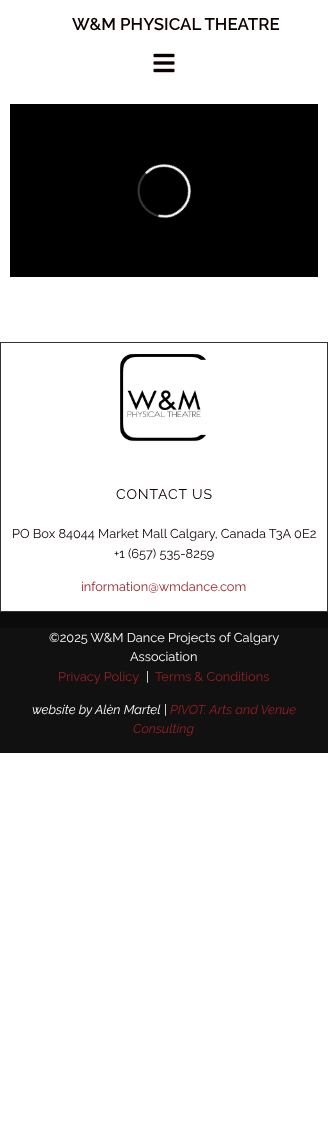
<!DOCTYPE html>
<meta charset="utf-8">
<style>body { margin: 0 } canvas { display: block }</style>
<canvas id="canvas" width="328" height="1143"></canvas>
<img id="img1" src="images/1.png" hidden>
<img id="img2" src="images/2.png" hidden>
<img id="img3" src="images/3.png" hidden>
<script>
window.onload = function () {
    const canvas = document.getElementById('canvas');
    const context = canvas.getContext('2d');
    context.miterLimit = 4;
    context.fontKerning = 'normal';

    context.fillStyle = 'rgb(255, 255, 255)';
    context.fillRect(0, 0, 328, 1143);
    context.drawImage(document.getElementById('img1'), 153, 53, 22, 20);
    context.fillStyle = 'rgb(0, 0, 0)';
    context.fillRect(10, 104, 308, 173);
    context.drawImage(document.getElementById('img2'), 137, 163, 55, 56);
    context.fillStyle = 'rgb(11, 11, 11)';
    context.fillRect(0, 612, 328, 16);
    context.strokeStyle = 'rgb(51, 51, 51)';
    context.strokeRect(0.5, 342.5, 327, 269);
    context.drawImage(document.getElementById('img3'), 120, 354, 86, 88);
    context.fillStyle = 'rgb(17, 17, 17)';
    context.fillRect(0, 628, 328, 125);
    context.font = '600 16.9px Raleway';
    context.fillStyle = 'rgb(14, 0, 0)';
    context.fillText('W&M PHYSICAL THEATRE', 72, 30);
    context.letterSpacing = '0.9px';
    context.font = '14px Raleway';
    context.fillText('CONTACT US', 116, 499);
    context.letterSpacing = '0px';
    context.font = '12.8px Raleway';
    context.fillText('PO Box 84044 Market Mall Calgary, Canada T3A 0E2', 12, 538);
    context.fillText('+1 (657) 535-8259', 114, 558);
    context.fillStyle = 'rgb(154, 30, 38)';
    context.fillText('information@wmdance.com', 81, 591);
    context.fillStyle = 'rgb(255, 255, 255)';
    context.fillText('©2025 W&M Dance Projects of Calgary', 49, 642);
    context.fillText('Association', 130, 661);
    context.fillStyle = 'rgb(154, 30, 38)';
    context.fillText('Privacy Policy', 58, 681);
    context.fillStyle = 'rgb(255, 255, 255)';
    context.fillText('|', 146, 681);
    context.fillStyle = 'rgb(154, 30, 38)';
    context.fillText('Terms & Conditions', 155, 681);
    context.font = 'italic 12.8px Raleway';
    context.fillStyle = 'rgb(255, 255, 255)';
    context.fillText('website by Alèn Martel |', 32, 714);
    context.fillStyle = 'rgb(154, 30, 38)';
    context.fillText('PIVOT. Arts and Venue', 170, 714);
    context.fillText('Consulting', 133, 733);
};
</script>
